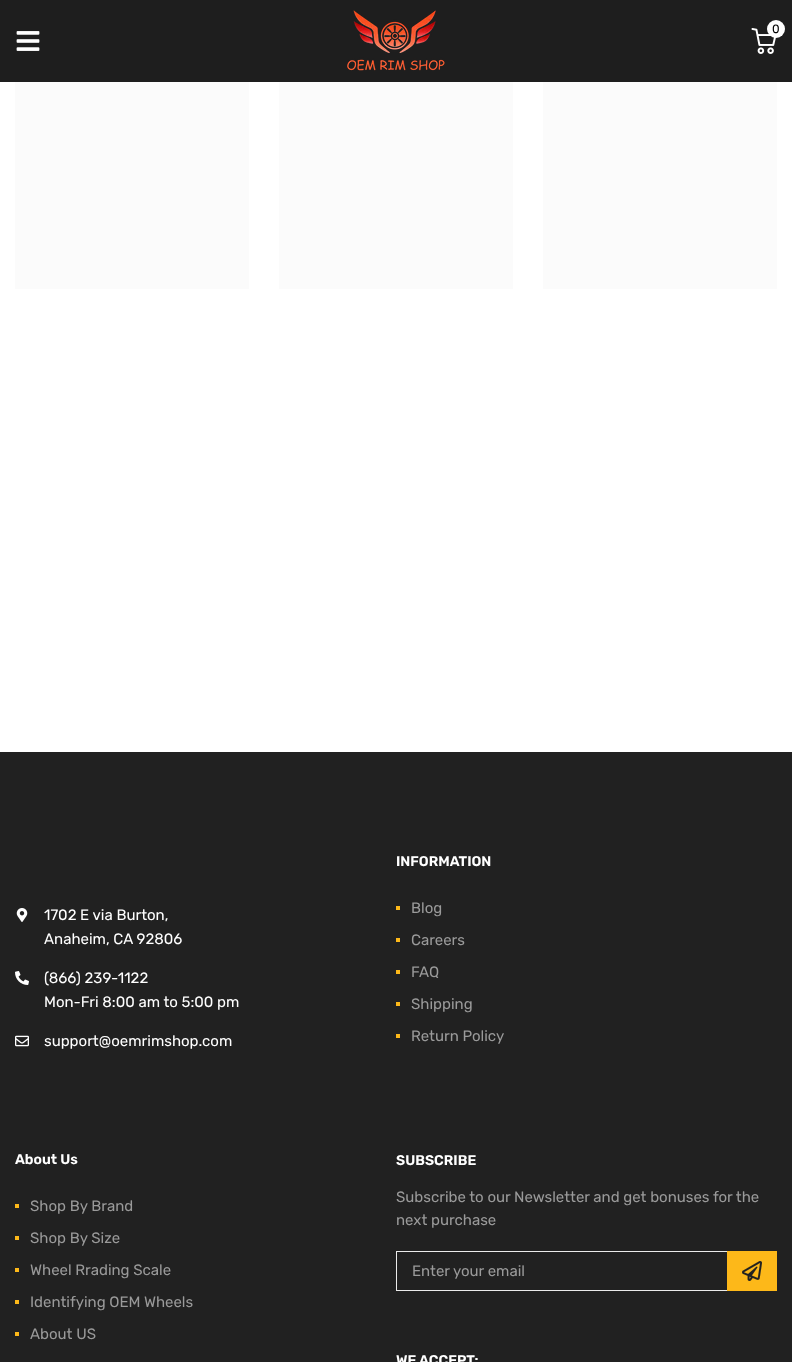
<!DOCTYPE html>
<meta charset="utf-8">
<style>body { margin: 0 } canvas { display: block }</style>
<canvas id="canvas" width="792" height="1362"></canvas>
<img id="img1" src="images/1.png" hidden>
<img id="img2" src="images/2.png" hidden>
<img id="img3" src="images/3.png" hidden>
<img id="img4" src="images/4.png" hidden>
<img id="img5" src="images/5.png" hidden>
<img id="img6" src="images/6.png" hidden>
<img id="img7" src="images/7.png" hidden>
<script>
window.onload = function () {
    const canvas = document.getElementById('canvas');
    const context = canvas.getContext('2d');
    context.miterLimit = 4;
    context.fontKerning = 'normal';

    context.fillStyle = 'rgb(255, 255, 255)';
    context.fillRect(0, 0, 792, 1362);
    context.fillStyle = 'rgb(30, 30, 30)';
    context.fillRect(0, 0, 792, 82);
    context.drawImage(document.getElementById('img1'), 347, 10, 98, 61);
    context.drawImage(document.getElementById('img2'), 751, 28, 25, 26);
    context.fillStyle = 'rgb(255, 255, 255)';
    context.beginPath();
    context.arc(776, 29, 9, 0, 2 * Math.PI);
    context.fill();
    context.drawImage(document.getElementById('img3'), 16, 31, 24, 20);
    context.fillStyle = 'rgb(251, 251, 251)';
    context.fillRect(15, 82, 234, 207);
    context.fillRect(279, 82, 234, 207);
    context.fillRect(543, 82, 234, 207);
    context.fillStyle = 'rgb(33, 33, 33)';
    context.fillRect(0, 752, 792, 610);
    context.drawImage(document.getElementById('img4'), 16, 908, 12, 14);
    context.drawImage(document.getElementById('img5'), 15, 971, 14, 14);
    context.drawImage(document.getElementById('img6'), 15, 1035, 14, 12);
    context.fillStyle = 'rgb(253, 184, 25)';
    context.fillRect(396, 906, 4, 4);
    context.fillRect(396, 938, 4, 4);
    context.fillRect(396, 970, 4, 4);
    context.fillRect(396, 1002, 4, 4);
    context.fillRect(396, 1034, 4, 4);
    context.fillRect(15, 1204, 4, 4);
    context.fillRect(15, 1236, 4, 4);
    context.fillRect(15, 1268, 4, 4);
    context.fillRect(15, 1300, 4, 4);
    context.fillRect(15, 1332, 4, 4);
    context.fillStyle = 'rgb(235, 235, 235)';
    context.fillRect(396, 1251, 331, 1);
    context.fillRect(396, 1290, 331, 1);
    context.fillRect(396, 1251, 1, 40);
    context.fillStyle = 'rgb(253, 184, 25)';
    context.fillRect(727, 1251, 50, 40);
    context.drawImage(document.getElementById('img7'), 742, 1261, 20, 20);
    context.font = '12px Rubik';
    context.fillStyle = 'rgb(0, 0, 0)';
    context.fillText('0', 772, 33);
    context.font = '15px Rubik';
    context.fillStyle = 'rgb(255, 255, 255)';
    context.fillText('1702 E via Burton,', 44, 920);
    context.fillText('Anaheim, CA 92806', 44, 944);
    context.fillText('(866) 239-1122', 44, 983);
    context.fillText('Mon-Fri 8:00 am to 5:00 pm', 44, 1007);
    context.fillText('support@oemrimshop.com', 44, 1046);
    context.font = '600 14px Rubik';
    context.fillText('INFORMATION', 396, 866);
    context.font = '15px Rubik';
    context.fillStyle = 'rgb(154, 154, 154)';
    context.fillText('Blog', 411, 913);
    context.fillText('Careers', 411, 945);
    context.fillText('FAQ', 411, 977);
    context.fillText('Shipping', 411, 1009);
    context.fillText('Return Policy', 411, 1041);
    context.font = '600 14px Rubik';
    context.fillStyle = 'rgb(255, 255, 255)';
    context.fillText('About Us', 15, 1164);
    context.font = '15px Rubik';
    context.fillStyle = 'rgb(154, 154, 154)';
    context.fillText('Shop By Brand', 30, 1211);
    context.fillText('Shop By Size', 30, 1243);
    context.fillText('Wheel Rrading Scale', 30, 1275);
    context.fillText('Identifying OEM Wheels', 30, 1307);
    context.fillText('About US', 30, 1339);
    context.font = '600 14px Rubik';
    context.fillStyle = 'rgb(255, 255, 255)';
    context.fillText('SUBSCRIBE', 396, 1165);
    context.font = '15px Rubik';
    context.fillStyle = 'rgb(154, 154, 154)';
    context.fillText('Subscribe to our Newsletter and get bonuses for the', 396, 1202);
    context.fillText('next purchase', 396, 1225);
    context.fillText('Enter your email', 412, 1276);
    context.font = '600 14px Rubik';
    context.fillStyle = 'rgb(255, 255, 255)';
    context.fillText('WE ACCEPT:', 396, 1365);
};
</script>
